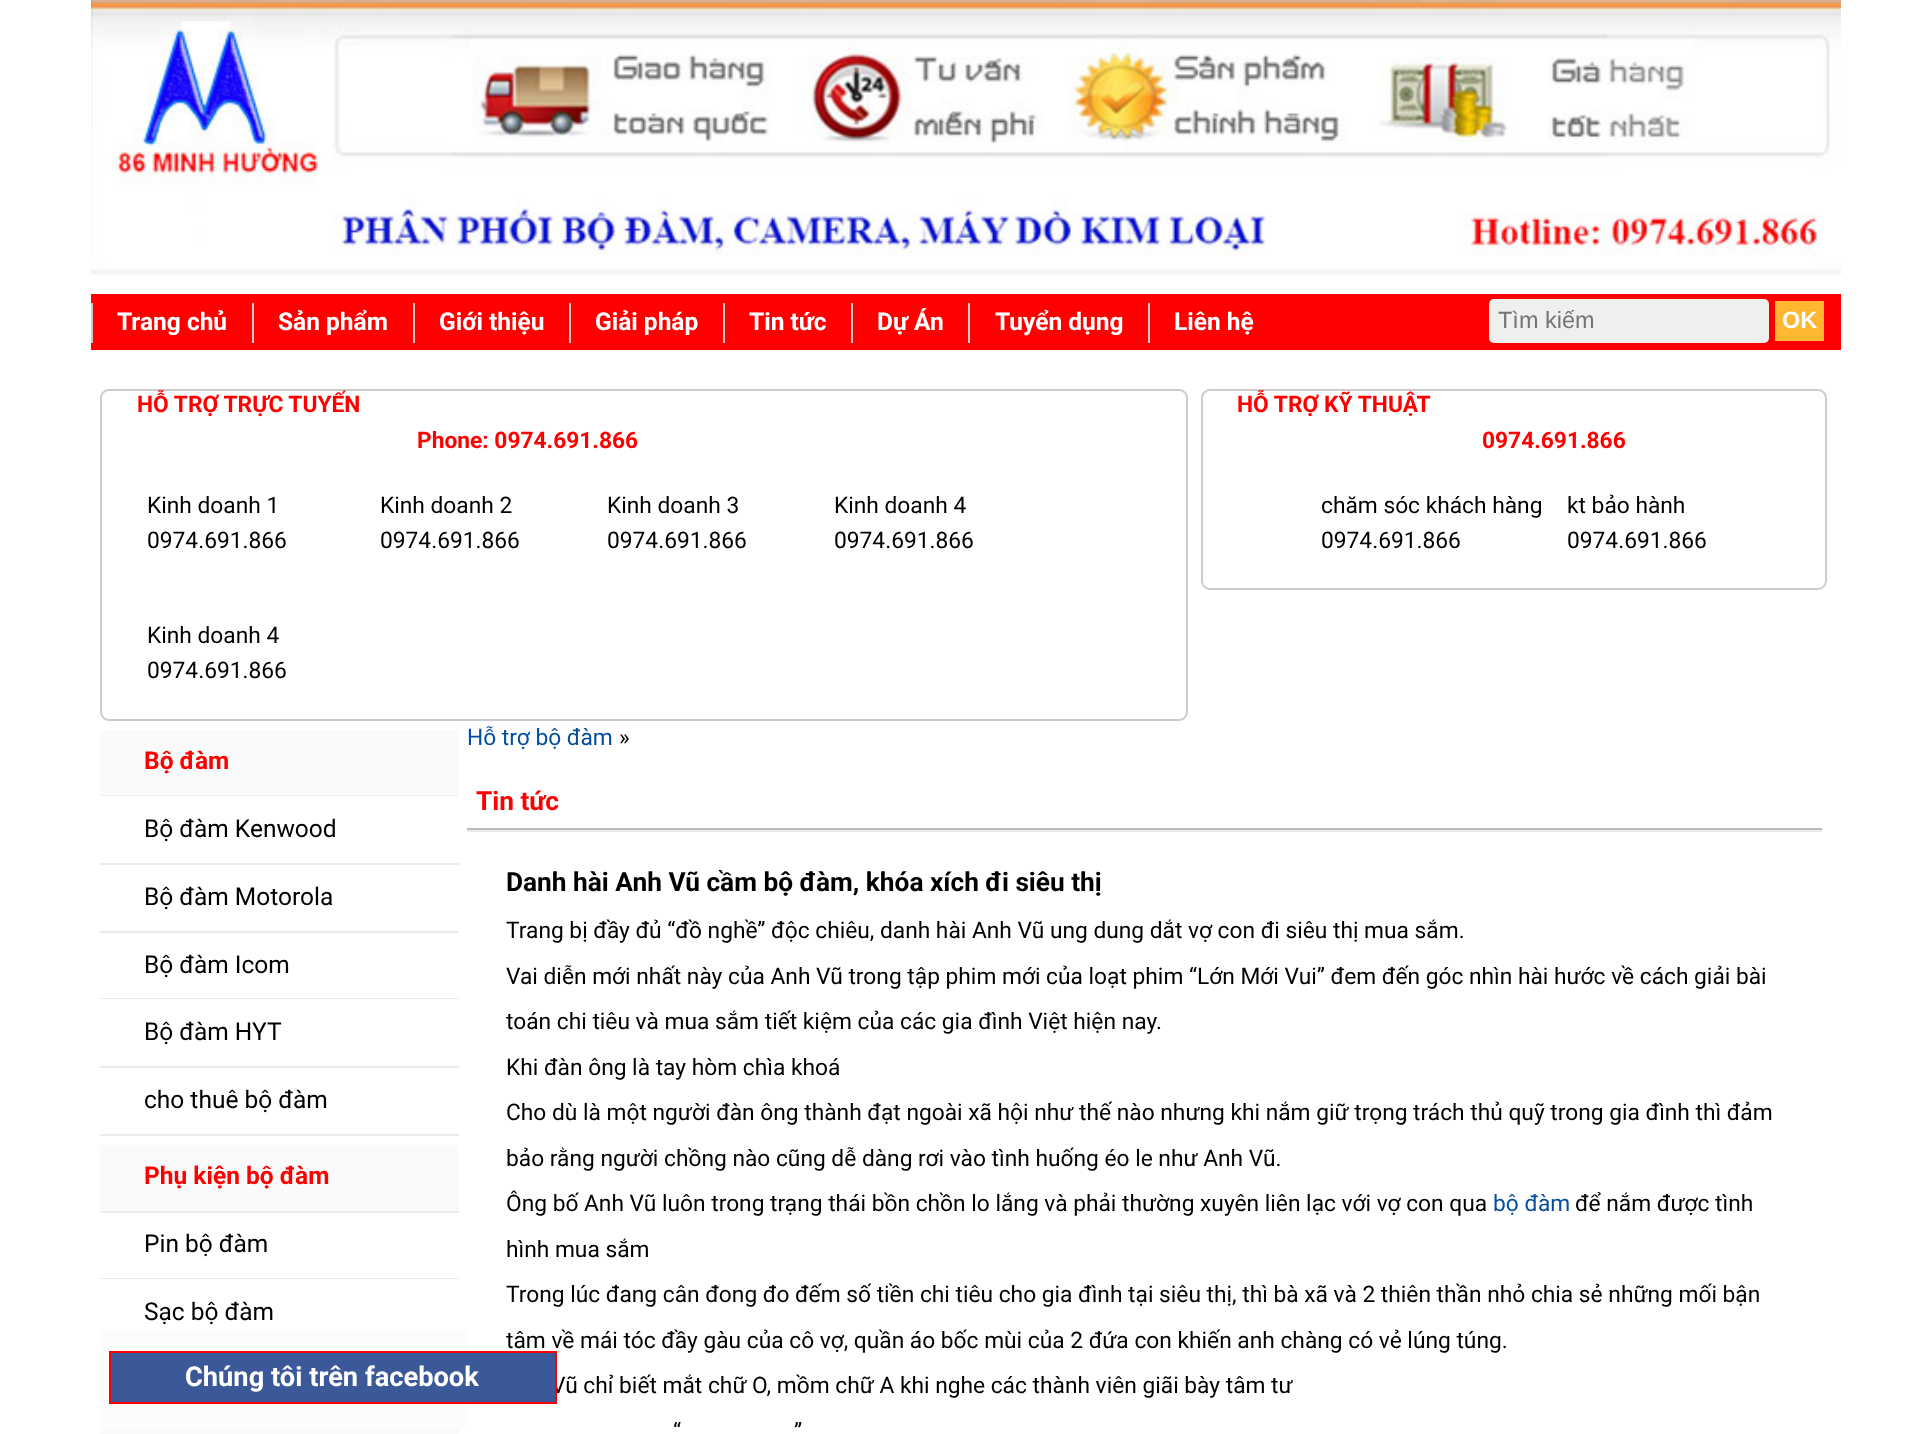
<!DOCTYPE html>
<meta charset="utf-8">
<style>body { margin: 0 } canvas { display: block }</style>
<canvas id="canvas" width="1931" height="1434"></canvas>
<img id="img1" src="images/1.png" hidden>
<script>
window.onload = function () {
    const canvas = document.getElementById('canvas');
    const context = canvas.getContext('2d');
    context.miterLimit = 4;
    context.fontKerning = 'normal';

    context.fillStyle = 'rgb(255, 255, 255)';
    context.fillRect(0, 0, 1931, 1434);
    context.drawImage(document.getElementById('img1'), 91, 0, 1750, 275);
    context.fillStyle = 'rgb(255, 0, 0)';
    context.fillRect(91, 294, 1750, 56);
    context.fillStyle = 'rgb(202, 202, 202)';
    context.fillRect(91, 303, 2, 40);
    context.fillRect(252, 303, 2, 40);
    context.fillRect(413, 303, 2, 40);
    context.fillRect(569, 303, 2, 40);
    context.fillRect(723, 303, 2, 40);
    context.fillRect(851, 303, 2, 40);
    context.fillRect(968, 303, 2, 40);
    context.fillRect(1148, 303, 2, 40);
    context.fillStyle = 'rgb(239, 239, 239)';
    context.beginPath();
    context.roundRect(1489, 299, 280, 44, 5);
    context.fill();
    context.fillStyle = 'rgb(255, 183, 50)';
    context.fillRect(1775, 301, 49, 40);
    context.beginPath();
    context.roundRect(101, 390, 1086, 330, 8);
    context.strokeStyle = 'rgb(204, 204, 204)';
    context.lineWidth = 2;
    context.stroke();
    context.beginPath();
    context.roundRect(1202, 390, 624, 199, 8);
    context.stroke();
    context.fillStyle = 'rgb(250, 250, 250)';
    context.fillRect(100, 730, 359, 65);
    context.fillStyle = 'rgb(238, 238, 238)';
    context.fillRect(100, 795, 359, 1);
    context.fillStyle = 'rgb(234, 234, 234)';
    context.fillRect(100, 863, 359, 2);
    context.fillRect(100, 931, 359, 2);
    context.fillRect(100, 998, 359, 1);
    context.fillRect(100, 1066, 359, 2);
    context.fillRect(100, 1134, 359, 2);
    context.fillStyle = 'rgb(250, 250, 250)';
    context.fillRect(100, 1145, 359, 66);
    context.fillStyle = 'rgb(238, 238, 238)';
    context.fillRect(100, 1211, 359, 2);
    context.fillStyle = 'rgb(234, 234, 234)';
    context.fillRect(100, 1278, 359, 1);
    context.fillStyle = 'rgb(250, 250, 250)';
    context.fillRect(100, 1428, 359, 6);
    context.fillStyle = 'rgb(252, 252, 252)';
    context.fillRect(100, 1330, 367, 98);
    context.fillStyle = 'rgb(234, 234, 234)';
    context.fillRect(467, 830, 1355, 2);
    context.fillStyle = 'rgb(187, 187, 187)';
    context.fillRect(467, 828, 1355, 2);
    context.font = 'bold 24.5px Roboto';
    context.fillStyle = 'rgb(255, 255, 255)';
    context.fillText('Trang chủ', 117, 330);
    context.fillText('Sản phẩm', 278, 330);
    context.fillText('Giới thiệu', 439, 330);
    context.fillText('Giải pháp', 595, 330);
    context.fillText('Tin tức', 749, 330);
    context.fillText('Dự Án', 877, 330);
    context.fillText('Tuyển dụng', 995, 330);
    context.fillText('Liên hệ', 1174, 330);
    context.font = '23.5px Liberation Sans';
    context.fillStyle = 'rgb(117, 117, 117)';
    context.fillText('Tìm kiếm', 1498, 328);
    context.font = 'bold 23.5px Liberation Sans';
    context.fillStyle = 'rgb(255, 255, 255)';
    context.fillText('OK', 1782, 328);
    context.font = 'bold 22.75px Roboto';
    context.fillStyle = 'rgb(255, 0, 0)';
    context.fillText('HỖ TRỢ TRỰC TUYẾN', 137, 412);
    context.fillText('Phone: 0974.691.866', 417, 448);
    context.font = '22.75px Roboto';
    context.fillStyle = 'rgb(0, 0, 0)';
    context.fillText('Kinh doanh 1', 147, 513);
    context.fillText('0974.691.866', 147, 548);
    context.fillText('Kinh doanh 2', 380, 513);
    context.fillText('0974.691.866', 380, 548);
    context.fillText('Kinh doanh 3', 607, 513);
    context.fillText('0974.691.866', 607, 548);
    context.fillText('Kinh doanh 4', 834, 513);
    context.fillText('0974.691.866', 834, 548);
    context.fillText('Kinh doanh 4', 147, 643);
    context.fillText('0974.691.866', 147, 678);
    context.font = 'bold 22.75px Roboto';
    context.fillStyle = 'rgb(255, 0, 0)';
    context.fillText('HỖ TRỢ KỸ THUẬT', 1237, 412);
    context.fillText('0974.691.866', 1482, 448);
    context.font = '22.75px Roboto';
    context.fillStyle = 'rgb(0, 0, 0)';
    context.fillText('chăm sóc khách hàng', 1321, 513);
    context.fillText('0974.691.866', 1321, 548);
    context.fillText('kt bảo hành', 1567, 513);
    context.fillText('0974.691.866', 1567, 548);
    context.font = 'bold 24.5px Roboto';
    context.fillStyle = 'rgb(255, 0, 0)';
    context.fillText('Bộ đàm', 144, 769);
    context.font = '24.5px Roboto';
    context.fillStyle = 'rgb(0, 0, 0)';
    context.fillText('Bộ đàm Kenwood', 144, 837);
    context.fillText('Bộ đàm Motorola', 144, 905);
    context.fillText('Bộ đàm Icom', 144, 973);
    context.fillText('Bộ đàm HYT', 144, 1040);
    context.fillText('cho thuê bộ đàm', 144, 1108);
    context.font = 'bold 24.5px Roboto';
    context.fillStyle = 'rgb(255, 0, 0)';
    context.fillText('Phụ kiện bộ đàm', 144, 1184);
    context.font = '24.5px Roboto';
    context.fillStyle = 'rgb(0, 0, 0)';
    context.fillText('Pin bộ đàm', 144, 1252);
    context.fillText('Sạc bộ đàm', 144, 1320);
    context.font = '22.75px Roboto';
    context.fillStyle = 'rgb(3, 78, 161)';
    context.fillText('Hỗ trợ bộ đàm', 467, 745);
    context.fillStyle = 'rgb(0, 0, 0)';
    context.fillText('»', 619, 745);
    context.font = 'bold 26.25px Roboto';
    context.fillStyle = 'rgb(255, 0, 0)';
    context.fillText('Tin tức', 476, 810);
    context.fillStyle = 'rgb(0, 0, 0)';
    context.fillText('Danh hài Anh Vũ cầm bộ đàm, khóa xích đi siêu thị', 506, 891);
    context.font = '22.75px Roboto';
    context.fillText('Trang bị đầy đủ “đồ nghề” độc chiêu, danh hài Anh Vũ ung dung dắt vợ con đi siêu thị mua sắm.', 506, 938);
    context.fillText('Vai diễn mới nhất này của Anh Vũ trong tập phim mới của loạt phim “Lớn Mới Vui” đem đến góc nhìn hài hước về cách giải bài', 506, 984);
    context.fillText('toán chi tiêu và mua sắm tiết kiệm của các gia đình Việt hiện nay.', 506, 1029);
    context.fillText('Khi đàn ông là tay hòm chìa khoá', 506, 1075);
    context.fillText('Cho dù là một người đàn ông thành đạt ngoài xã hội như thế nào nhưng khi nắm giữ trọng trách thủ quỹ trong gia đình thì đảm', 506, 1120);
    context.fillText('bảo rằng người chồng nào cũng dễ dàng rơi vào tình huống éo le như Anh Vũ.', 506, 1166);
    context.fillText('Ông bố Anh Vũ luôn trong trạng thái bồn chồn lo lắng và phải thường xuyên liên lạc với vợ con qua', 506, 1211);
    context.fillStyle = 'rgb(3, 78, 161)';
    context.fillText('bộ đàm', 1493, 1211);
    context.fillStyle = 'rgb(0, 0, 0)';
    context.fillText('để nắm được tình', 1575, 1211);
    context.fillText('hình mua sắm', 506, 1257);
    context.fillText('Trong lúc đang cân đong đo đếm số tiền chi tiêu cho gia đình tại siêu thị, thì bà xã và 2 thiên thần nhỏ chia sẻ những mối bận', 506, 1302);
    context.fillText('tâm về mái tóc đầy gàu của cô vợ, quần áo bốc mùi của 2 đứa con khiến anh chàng có vẻ lúng túng.', 506, 1348);
    context.fillText('Vũ chỉ biết mắt chữ O, mồm chữ A khi nghe các thành viên giãi bày tâm tư', 551, 1393);
    context.fillStyle = 'rgb(59, 89, 152)';
    context.beginPath();
    context.rect(110, 1352, 446, 51);
    context.fill();
    context.strokeStyle = 'rgb(255, 0, 0)';
    context.stroke();
    context.font = 'bold 27.25px Roboto';
    context.fillStyle = 'rgb(255, 255, 255)';
    context.fillText('Chúng tôi trên facebook', 185, 1386);
    context.font = '22.75px Roboto';
    context.fillStyle = 'rgb(0, 0, 0)';
    context.fillText('“', 673, 1439);
    context.fillText('”', 794, 1439);
};
</script>
